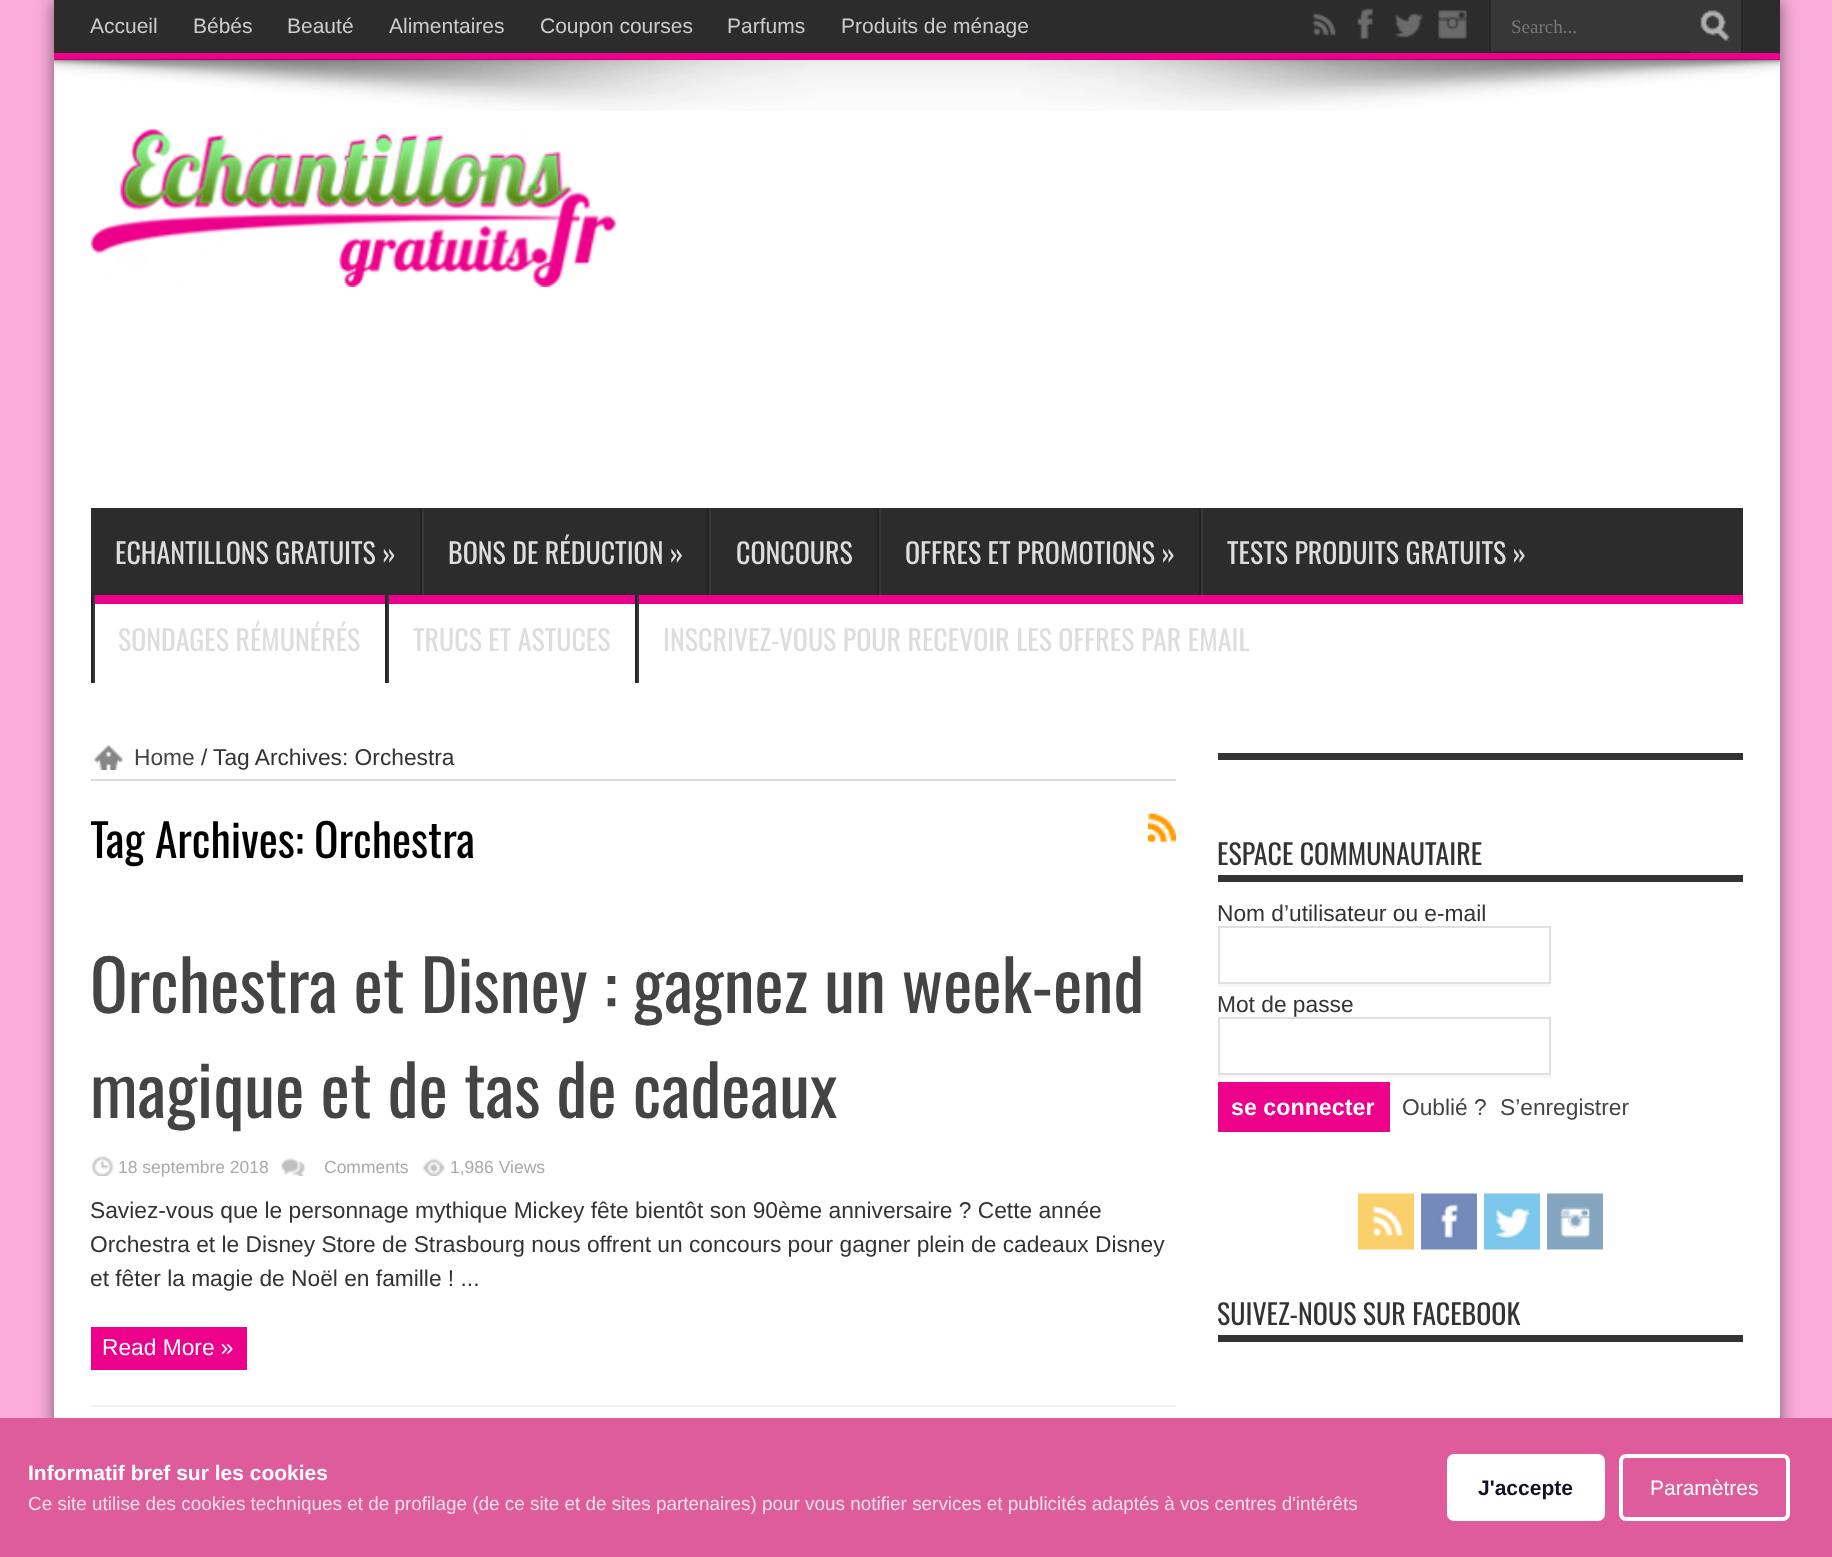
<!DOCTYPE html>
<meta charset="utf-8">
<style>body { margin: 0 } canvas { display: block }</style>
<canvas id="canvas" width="1832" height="1557"></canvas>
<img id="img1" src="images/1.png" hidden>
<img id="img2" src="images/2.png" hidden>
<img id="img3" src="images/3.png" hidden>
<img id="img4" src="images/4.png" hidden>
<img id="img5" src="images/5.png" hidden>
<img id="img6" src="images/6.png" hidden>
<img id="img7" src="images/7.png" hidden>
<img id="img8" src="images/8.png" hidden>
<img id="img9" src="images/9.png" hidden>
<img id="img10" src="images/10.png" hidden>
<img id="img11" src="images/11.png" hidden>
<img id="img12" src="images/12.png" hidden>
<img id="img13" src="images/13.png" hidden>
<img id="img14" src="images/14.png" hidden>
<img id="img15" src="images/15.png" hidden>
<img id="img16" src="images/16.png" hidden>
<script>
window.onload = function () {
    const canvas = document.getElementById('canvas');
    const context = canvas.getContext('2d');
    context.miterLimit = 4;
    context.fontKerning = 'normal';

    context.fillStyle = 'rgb(250, 173, 218)';
    context.fillRect(0, 0, 1832, 1557);
    context.fillStyle = 'rgba(0, 0, 0, 0.5)';
    context.filter = 'blur(9px)';
    context.beginPath();
    context.rect(54, 0, 1726, 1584);
    context.fill();
    context.filter = 'none';
    context.fillStyle = 'rgb(255, 255, 255)';
    context.fillRect(54, 60, 1726, 1358);
    context.fillStyle = 'rgb(44, 44, 44)';
    context.fillRect(54, 0, 1726, 53);
    context.fillStyle = 'rgb(237, 0, 138)';
    context.fillRect(54, 53, 1726, 7);
    context.drawImage(document.getElementById('img1'), 1312, 13, 24, 23);
    context.drawImage(document.getElementById('img2'), 1357, 8, 17, 31);
    context.drawImage(document.getElementById('img3'), 1394, 13, 29, 25);
    context.drawImage(document.getElementById('img4'), 1438, 10, 29, 29);
    context.fillStyle = 'rgb(55, 55, 55)';
    context.fillRect(1491, 0, 200, 51);
    context.fillStyle = 'rgb(37, 37, 37)';
    context.fillRect(1489, 0, 2, 51);
    context.fillStyle = 'rgb(55, 55, 55)';
    context.fillRect(1691, 0, 50, 53);
    context.drawImage(document.getElementById('img5'), 1700, 10, 31, 32);
    context.fillStyle = 'rgb(37, 37, 37)';
    context.fillRect(1741, 0, 2, 53);
    context.drawImage(document.getElementById('img6'), 54, 59, 1726, 52);
    context.drawImage(document.getElementById('img7'), 91, 129, 525, 158);
    context.fillStyle = 'rgb(44, 44, 44)';
    context.fillRect(91, 508, 1652, 87);
    context.fillStyle = 'rgb(237, 0, 138)';
    context.fillRect(95, 595, 1648, 9);
    context.fillStyle = 'rgb(34, 34, 34)';
    context.fillRect(420, 508, 2, 87);
    context.fillStyle = 'rgb(56, 56, 56)';
    context.fillRect(422, 508, 2, 87);
    context.fillStyle = 'rgb(34, 34, 34)';
    context.fillRect(707, 508, 2, 87);
    context.fillStyle = 'rgb(56, 56, 56)';
    context.fillRect(709, 508, 2, 87);
    context.fillStyle = 'rgb(34, 34, 34)';
    context.fillRect(877, 508, 2, 87);
    context.fillStyle = 'rgb(56, 56, 56)';
    context.fillRect(879, 508, 2, 87);
    context.fillStyle = 'rgb(34, 34, 34)';
    context.fillRect(1199, 508, 2, 87);
    context.fillStyle = 'rgb(56, 56, 56)';
    context.fillRect(1201, 508, 2, 87);
    context.fillStyle = 'rgb(34, 34, 34)';
    context.fillRect(91, 595, 2, 88);
    context.fillStyle = 'rgb(56, 56, 56)';
    context.fillRect(93, 595, 2, 88);
    context.fillStyle = 'rgb(34, 34, 34)';
    context.fillRect(385, 595, 2, 88);
    context.fillStyle = 'rgb(56, 56, 56)';
    context.fillRect(387, 595, 2, 88);
    context.fillStyle = 'rgb(34, 34, 34)';
    context.fillRect(635, 595, 2, 88);
    context.fillStyle = 'rgb(56, 56, 56)';
    context.fillRect(637, 595, 2, 88);
    context.fillStyle = 'rgb(221, 221, 221)';
    context.fillRect(91, 779, 1085, 2);
    context.drawImage(document.getElementById('img8'), 94, 745, 29, 25);
    context.drawImage(document.getElementById('img9'), 1148, 813, 28, 29);
    context.fillStyle = 'rgb(242, 242, 242)';
    context.fillRect(91, 1405, 1085, 2);
    context.drawImage(document.getElementById('img10'), 91, 1156, 23, 20);
    context.drawImage(document.getElementById('img11'), 281, 1158, 24, 18);
    context.drawImage(document.getElementById('img12'), 422, 1158, 23, 18);
    context.fillStyle = 'rgb(237, 0, 138)';
    context.fillRect(91, 1327, 156, 43);
    context.fillStyle = 'rgb(51, 51, 51)';
    context.fillRect(1218, 753, 525, 7);
    context.fillRect(1218, 875, 525, 7);
    context.fillStyle = 'rgb(247, 247, 247)';
    context.beginPath();
    context.moveTo(1218, 984);
    context.lineTo(1218, 987);
    context.lineTo(1551, 987);
    context.lineTo(1551, 929);
    context.lineTo(1550, 929);
    context.lineTo(1550, 984);
    context.closePath();
    context.fill();
    context.strokeStyle = 'rgb(224, 224, 224)';
    context.lineWidth = 2;
    context.strokeRect(1219, 927, 331, 56);
    context.beginPath();
    context.moveTo(1218, 1074);
    context.lineTo(1218, 1078);
    context.lineTo(1551, 1078);
    context.lineTo(1551, 1020);
    context.lineTo(1550, 1020);
    context.lineTo(1550, 1074);
    context.closePath();
    context.fill();
    context.strokeRect(1219, 1018, 331, 56);
    context.fillStyle = 'rgb(237, 0, 138)';
    context.fillRect(1218, 1082, 172, 50);
    context.drawImage(document.getElementById('img13'), 1358, 1193, 56, 57);
    context.drawImage(document.getElementById('img14'), 1421, 1193, 56, 57);
    context.drawImage(document.getElementById('img15'), 1484, 1193, 56, 57);
    context.drawImage(document.getElementById('img16'), 1547, 1193, 56, 57);
    context.fillStyle = 'rgb(51, 51, 51)';
    context.fillRect(1218, 1335, 525, 7);
    context.fillStyle = 'rgb(223, 92, 156)';
    context.fillRect(0, 1418, 1832, 139);
    context.fillStyle = 'rgb(255, 255, 255)';
    context.beginPath();
    context.roundRect(1449, 1456, 154, 63, 5);
    context.fill();
    context.strokeStyle = 'rgb(255, 255, 255)';
    context.lineWidth = 4;
    context.stroke();
    context.beginPath();
    context.roundRect(1621, 1456, 167, 63, 5);
    context.stroke();
    context.font = '21px Liberation Sans';
    context.fillStyle = 'rgb(204, 204, 204)';
    context.fillText('Accueil', 90, 33);
    context.fillText('Bébés', 193, 33);
    context.fillText('Beauté', 287, 33);
    context.fillText('Alimentaires', 389, 33);
    context.fillText('Coupon courses', 540, 33);
    context.fillText('Parfums', 727, 33);
    context.fillText('Produits de ménage', 841, 33);
    context.font = '19px Liberation Serif';
    context.fillStyle = 'rgb(120, 120, 120)';
    context.fillText('Search...', 1511, 33);
    context.font = '28px Oswald';
    context.fillStyle = 'rgb(221, 221, 221)';
    context.fillText('ECHANTILLONS GRATUITS »', 115, 564);
    context.fillText('BONS DE RÉDUCTION »', 448, 564);
    context.fillText('CONCOURS', 736, 564);
    context.fillText('OFFRES ET PROMOTIONS »', 905, 564);
    context.fillText('TESTS PRODUITS GRATUITS »', 1227, 564);
    context.fillText('SONDAGES RÉMUNÉRÉS', 118, 651);
    context.fillText('TRUCS ET ASTUCES', 413, 651);
    context.fillText('INSCRIVEZ-VOUS POUR RECEVOIR LES OFFRES PAR EMAIL', 663, 651);
    context.font = '22.75px Liberation Sans';
    context.fillStyle = 'rgb(68, 68, 68)';
    context.fillText('Home', 134, 765);
    context.fillStyle = 'rgb(51, 51, 51)';
    context.fillText('/', 201, 765);
    context.fillText('Tag Archives: Orchestra', 213, 765);
    context.save();
    context.beginPath();
    context.rect(91, 798, 1085, 96);
    context.clip();
    context.font = '45.5px Oswald';
    context.fillStyle = 'rgb(0, 0, 0)';
    context.fillText('Tag Archives:', 90, 858);
    context.restore();
    context.font = '45.5px Oswald';
    context.fillStyle = 'rgb(0, 0, 0)';
    context.fillText('Orchestra', 314, 858);
    context.font = '70px Oswald';
    context.fillStyle = 'rgb(68, 68, 68)';
    context.fillText('Orchestra et Disney : gagnez un week-end', 90, 1013);
    context.fillText('magique et de tas de cadeaux', 90, 1118);
    context.font = '17.5px Liberation Sans';
    context.fillStyle = 'rgb(170, 170, 170)';
    context.fillText('18 septembre 2018', 118, 1173);
    context.fillText('Comments', 324, 1173);
    context.fillText('1,986 Views', 450, 1173);
    context.font = '22.75px Liberation Sans';
    context.fillStyle = 'rgb(51, 51, 51)';
    context.fillText('Saviez-vous que le personnage mythique Mickey fête bientôt son 90ème anniversaire ? Cette année', 90, 1218);
    context.fillText('Orchestra et le Disney Store de Strasbourg nous offrent un concours pour gagner plein de cadeaux Disney', 90, 1252);
    context.fillText('et fêter la magie de Noël en famille ! ...', 90, 1286);
    context.fillStyle = 'rgb(255, 255, 255)';
    context.fillText('Read More »', 102, 1355);
    context.font = '28px Oswald';
    context.fillStyle = 'rgb(51, 51, 51)';
    context.fillText('ESPACE COMMUNAUTAIRE', 1217, 865);
    context.font = '22.75px Liberation Sans';
    context.fillText('Nom d’utilisateur ou e-mail', 1217, 921);
    context.fillText('Mot de passe', 1217, 1012);
    context.font = 'bold 23.25px Liberation Sans';
    context.fillStyle = 'rgb(255, 255, 255)';
    context.fillText('se connecter', 1231, 1115);
    context.font = '22.75px Liberation Sans';
    context.fillStyle = 'rgb(68, 68, 68)';
    context.fillText('Oublié ?', 1402, 1115);
    context.fillText('S’enregistrer', 1500, 1115);
    context.font = '28px Oswald';
    context.fillStyle = 'rgb(51, 51, 51)';
    context.fillText('SUIVEZ-NOUS SUR FACEBOOK', 1217, 1325);
    context.font = 'bold 21px Liberation Sans';
    context.fillStyle = 'rgb(255, 255, 255)';
    context.fillText('Informatif bref sur les cookies', 28, 1480);
    context.font = '18.9px Liberation Sans';
    context.fillStyle = 'rgb(249, 222, 235)';
    context.fillText('Ce site utilise des cookies techniques et de profilage (de ce site et de sites partenaires) pour vous notifier services et publicités adaptés à vos centres d\'intérêts', 28, 1510);
    context.font = 'bold 21px Liberation Sans';
    context.fillStyle = 'rgb(17, 17, 37)';
    context.fillText('J\'accepte', 1478, 1495);
    context.font = '21px Liberation Sans';
    context.fillStyle = 'rgb(255, 255, 255)';
    context.fillText('Paramètres', 1650, 1495);
};
</script>
